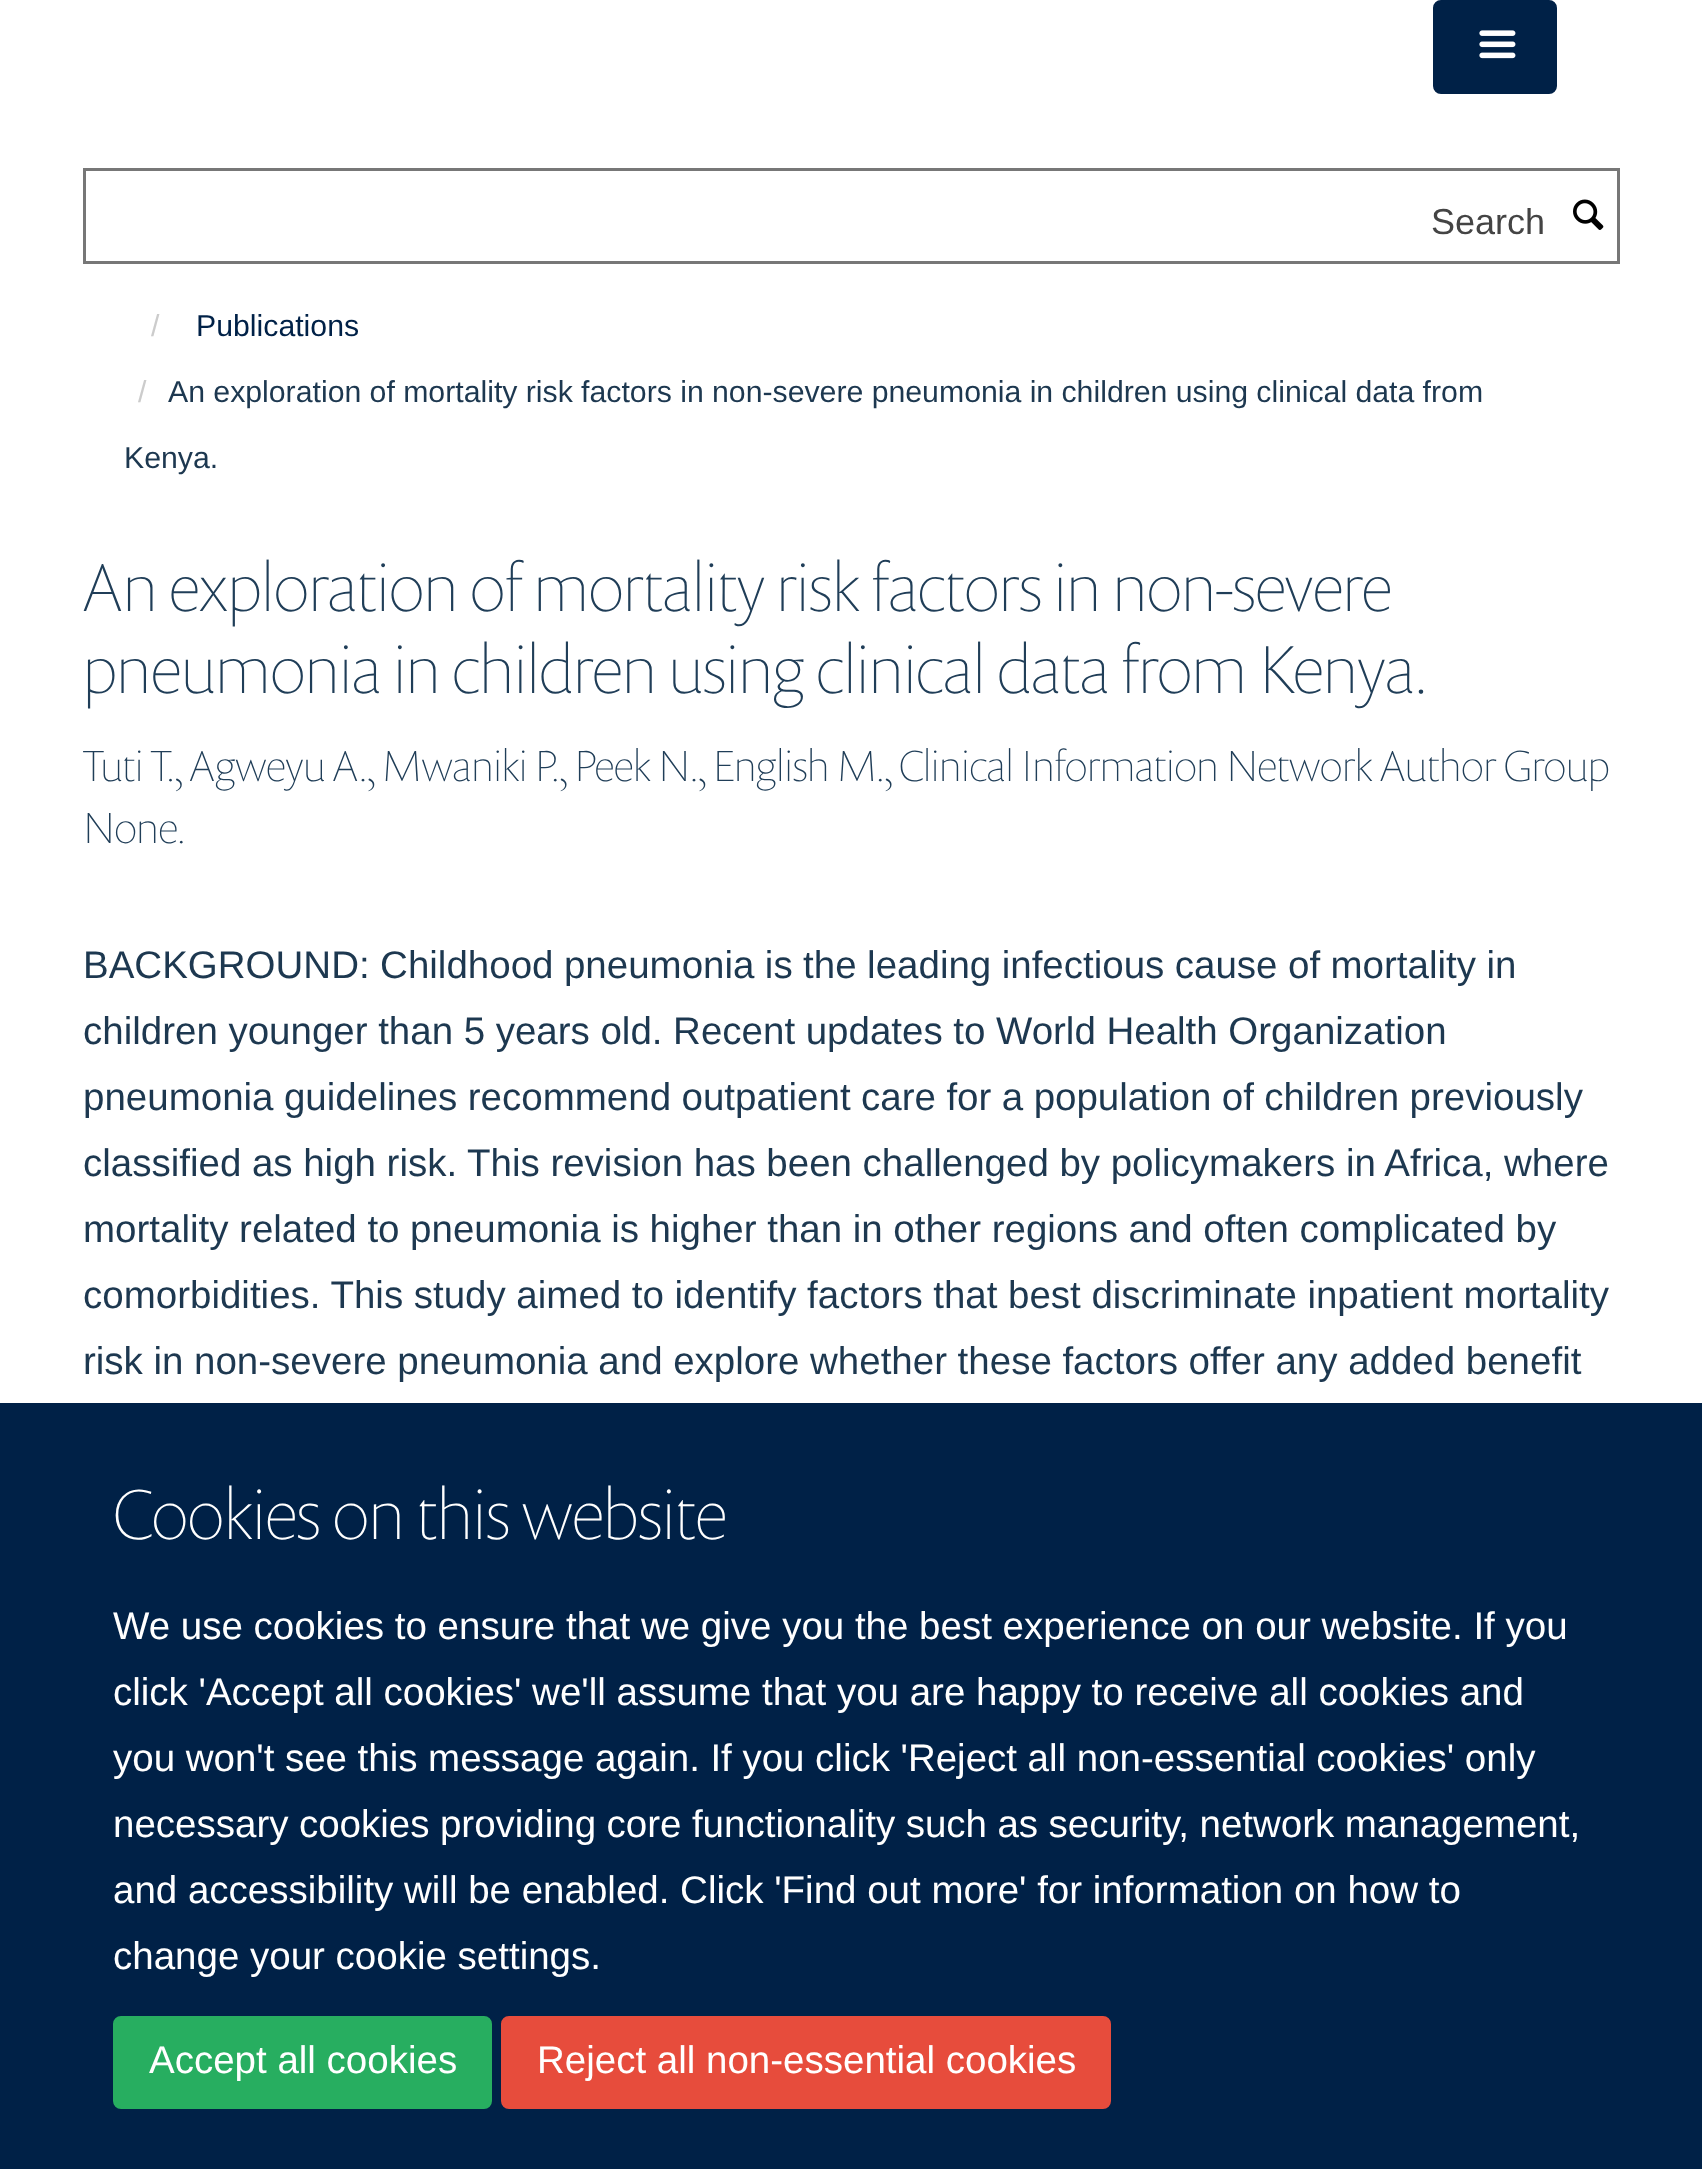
<!DOCTYPE html>
<meta charset="utf-8">
<style>body { margin: 0 } canvas { display: block }</style>
<canvas id="canvas" width="1702" height="2169"></canvas>
<img id="img1" src="images/1.png" hidden>
<img id="img2" src="images/2.png" hidden>
<script>
window.onload = function () {
    const canvas = document.getElementById('canvas');
    const context = canvas.getContext('2d');
    context.miterLimit = 4;
    context.fontKerning = 'normal';

    context.fillStyle = 'rgb(255, 255, 255)';
    context.fillRect(0, 0, 1702, 2169);
    context.fillStyle = 'rgb(0, 33, 71)';
    context.beginPath();
    context.roundRect(1434.5, 1.5, 121, 91, 6.5);
    context.fill();
    context.strokeStyle = 'rgb(0, 33, 71)';
    context.lineWidth = 3;
    context.stroke();
    context.drawImage(document.getElementById('img1'), 1479, 30, 37, 29);
    context.strokeStyle = 'rgb(119, 119, 119)';
    context.strokeRect(84.5, 169.5, 1534, 93);
    context.drawImage(document.getElementById('img2'), 1573, 199, 31, 31);
    context.fillRect(0, 1403, 1702, 766);
    context.fillStyle = 'rgb(39, 174, 96)';
    context.beginPath();
    context.roundRect(114.5, 2017.5, 376, 90, 6.5);
    context.fill();
    context.strokeStyle = 'rgb(39, 174, 96)';
    context.stroke();
    context.fillStyle = 'rgb(231, 76, 60)';
    context.beginPath();
    context.roundRect(502.5, 2017.5, 607, 90, 6.5);
    context.fill();
    context.strokeStyle = 'rgb(231, 76, 60)';
    context.stroke();
    context.font = '36px Liberation Sans';
    context.fillStyle = 'rgb(68, 68, 68)';
    context.fillText('Search', 1431, 234);
    context.font = '30.25px Liberation Sans';
    context.fillStyle = 'rgb(204, 204, 204)';
    context.fillText('/', 151, 336);
    context.fillStyle = 'rgb(0, 33, 71)';
    context.fillText('Publications', 196, 336);
    context.fillStyle = 'rgb(204, 204, 204)';
    context.fillText('/', 138, 402);
    context.wordSpacing = '-0.1px';
    context.fillStyle = 'rgb(29, 56, 80)';
    context.fillText('An exploration of mortality risk factors in non-severe pneumonia in children using clinical data from', 168, 402);
    context.wordSpacing = '0px';
    context.fillText('Kenya.', 124, 468);
    context.font = '100 68.75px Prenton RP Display';
    context.fillStyle = 'rgb(32, 62, 88)';
    context.fillText('An exploration of mortality risk factors in non-severe', 83, 611);
    context.fillText('pneumonia in children using clinical data from Kenya.', 83, 693);
    context.font = '100 44px Prenton RP Display';
    context.fillText('Tuti T., Agweyu A., Mwaniki P., Peek N., English M., Clinical Information Network Author Group', 83, 781);
    context.fillText('None.', 83, 843);
    context.wordSpacing = '-0.25px';
    context.font = '38.5px Liberation Sans';
    context.fillStyle = 'rgb(29, 56, 80)';
    context.fillText('BACKGROUND: Childhood pneumonia is the leading infectious cause of mortality in', 83, 978);
    context.wordSpacing = '-0.1px';
    context.fillText('children younger than 5 years old. Recent updates to World Health Organization', 83, 1044);
    context.wordSpacing = '-0.25px';
    context.fillText('pneumonia guidelines recommend outpatient care for a population of children previously', 83, 1110);
    context.wordSpacing = '-0.1px';
    context.fillText('classified as high risk. This revision has been challenged by policymakers in Africa, where', 83, 1176);
    context.fillText('mortality related to pneumonia is higher than in other regions and often complicated by', 83, 1242);
    context.fillText('comorbidities. This study aimed to identify factors that best discriminate inpatient mortality', 83, 1308);
    context.fillText('risk in non-severe pneumonia and explore whether these factors offer any added benefit', 83, 1374);
    context.wordSpacing = '0px';
    context.font = '100 71.5px Prenton RP Display';
    context.fillStyle = 'rgb(255, 255, 255)';
    context.fillText('Cookies on this website', 113, 1539);
    context.font = '38.5px Liberation Sans';
    context.fillText('We use cookies to ensure that we give you the best experience on our website. If you', 113, 1639);
    context.fillText('click \'Accept all cookies\' we\'ll assume that you are happy to receive all cookies and', 113, 1705);
    context.wordSpacing = '-0.1px';
    context.fillText('you won\'t see this message again. If you click \'Reject all non-essential cookies\' only', 113, 1771);
    context.wordSpacing = '-0.25px';
    context.fillText('necessary cookies providing core functionality such as security, network management,', 113, 1837);
    context.wordSpacing = '0px';
    context.fillText('and accessibility will be enabled. Click \'Find out more\' for information on how to', 113, 1903);
    context.fillText('change your cookie settings.', 113, 1969);
    context.fillText('Accept all cookies', 149, 2073);
    context.fillText('Reject all non-essential cookies', 537, 2073);
};
</script>
